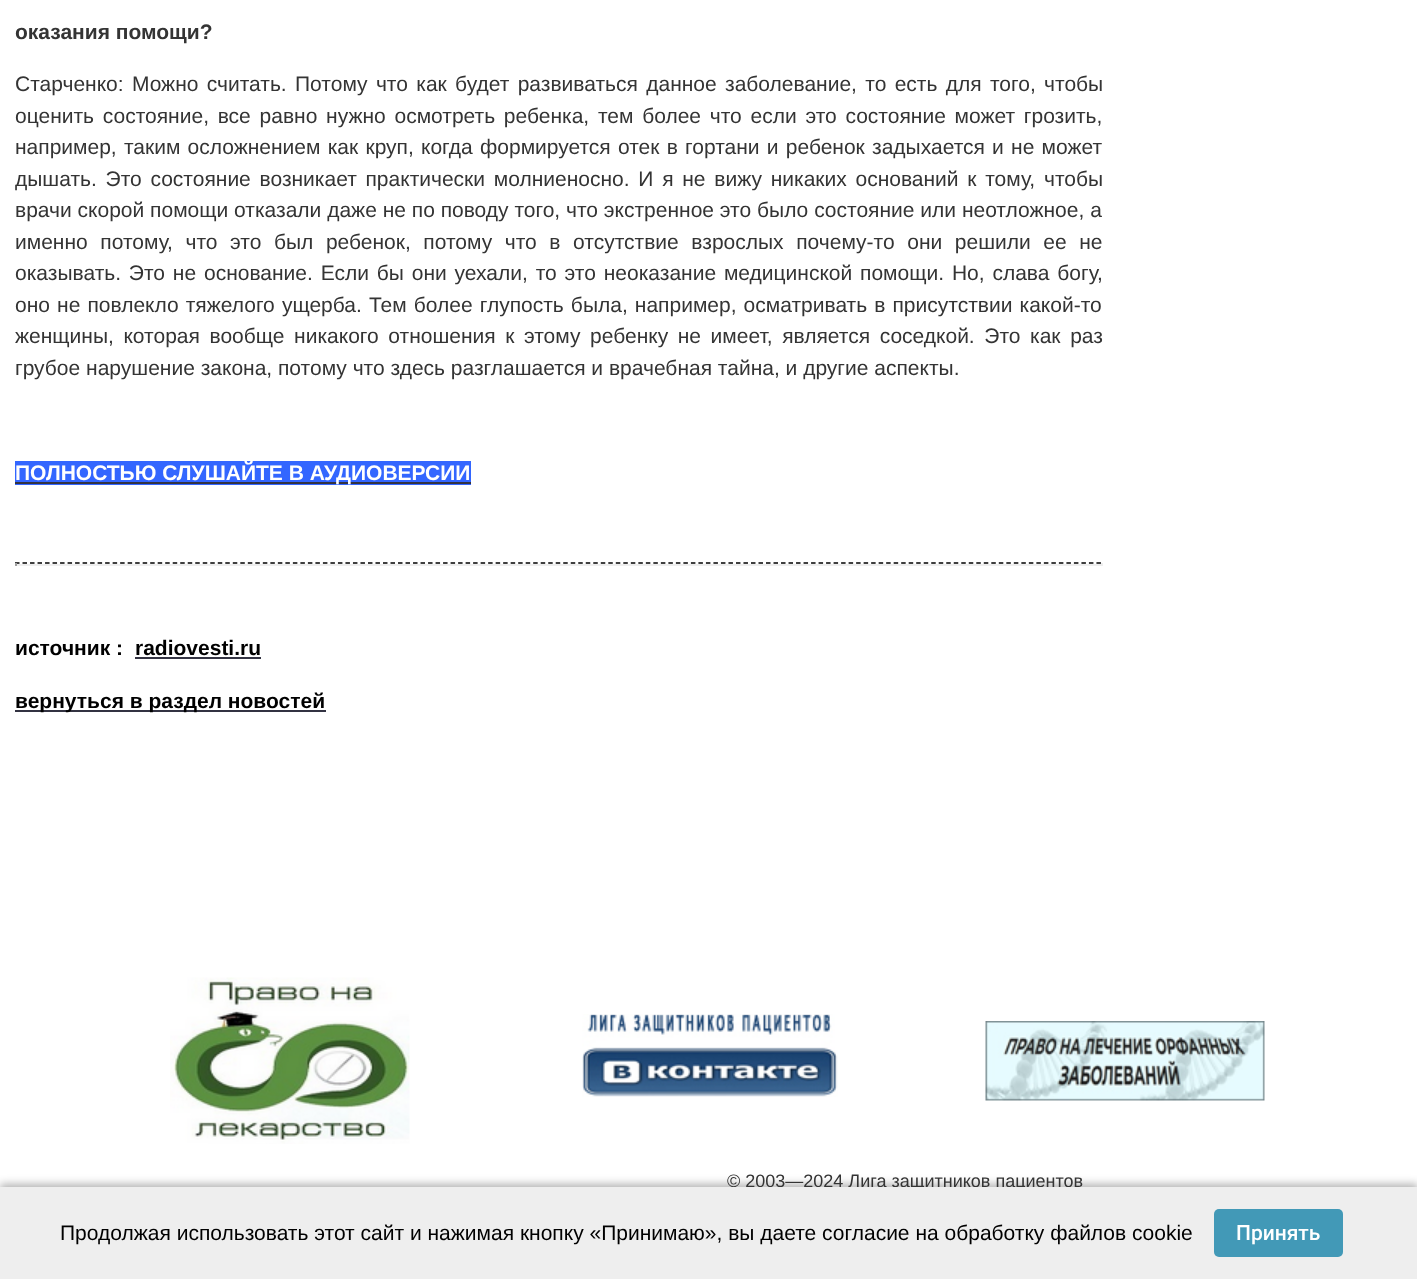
<!DOCTYPE html>
<meta charset="utf-8">
<style>body { margin: 0 } canvas { display: block }</style>
<canvas id="canvas" width="1417" height="1279"></canvas>
<img id="img1" src="images/1.png" hidden>
<img id="img2" src="images/2.png" hidden>
<img id="img3" src="images/3.png" hidden>
<script>
window.onload = function () {
    const canvas = document.getElementById('canvas');
    const context = canvas.getContext('2d');
    context.miterLimit = 4;
    context.fontKerning = 'normal';

    context.fillStyle = 'rgb(255, 255, 255)';
    context.fillRect(0, 0, 1417, 1279);
    context.fillStyle = 'rgb(51, 102, 255)';
    context.fillRect(15, 461, 456, 24);
    context.fillStyle = 'rgb(51, 51, 66)';
    context.fillRect(15, 482, 456, 2);
    context.beginPath();
    context.moveTo(15, 563);
    context.lineTo(1102.5, 563);
    context.strokeStyle = 'rgb(0, 0, 0)';
    context.lineWidth = 1.5;
    context.setLineDash([4.5, 3.01]);
    context.stroke();
    context.fillStyle = 'rgb(238, 238, 238)';
    context.fillRect(1101, 563, 2, 3);
    context.fillRect(15, 564, 1088, 2);
    context.fillStyle = 'rgb(159, 159, 159)';
    context.fillRect(15, 563, 2, 3);
    context.fillStyle = 'rgb(51, 51, 66)';
    context.fillRect(135, 657, 126, 2);
    context.fillRect(15, 710, 311, 2);
    context.drawImage(document.getElementById('img1'), 170, 977, 240, 167);
    context.drawImage(document.getElementById('img2'), 582, 1014, 256, 83);
    context.drawImage(document.getElementById('img3'), 985, 1021, 280, 80);
    context.fillStyle = 'rgba(0, 0, 0, 0.3)';
    context.filter = 'blur(4px)';
    context.beginPath();
    context.rect(0, 1184, 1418, 93);
    context.fill();
    context.filter = 'none';
    context.font = 'bold 21px Liberation Sans';
    context.fillStyle = 'rgb(52, 52, 52)';
    context.fillText('оказания помощи?', 15, 39);
    context.wordSpacing = '2.5px';
    context.font = '21px Liberation Sans';
    context.fillText('Старченко: Можно считать. Потому что как будет развиваться данное заболевание, то есть для того, чтобы', 15, 91);
    context.wordSpacing = '2.9px';
    context.fillText('оценить состояние, все равно нужно осмотреть ребенка, тем более что если это состояние может грозить,', 15, 123);
    context.wordSpacing = '1.4px';
    context.fillText('например, таким осложнением как круп, когда формируется отек в гортани и ребенок задыхается и не может', 15, 154);
    context.wordSpacing = '2.9px';
    context.fillText('дышать. Это состояние возникает практически молниеносно. И я не вижу никаких оснований к тому, чтобы', 15, 186);
    context.wordSpacing = '0px';
    context.fillText('врачи скорой помощи отказали даже не по поводу того, что экстренное это было состояние или неотложное, а', 15, 217);
    context.wordSpacing = '6.75px';
    context.fillText('именно потому, что это был ребенок, потому что в отсутствие взрослых почему-то они решили ее не', 15, 249);
    context.wordSpacing = '2px';
    context.fillText('оказывать. Это не основание. Если бы они уехали, то это неоказание медицинской помощи. Но, слава богу,', 15, 280);
    context.wordSpacing = '1.25px';
    context.fillText('оно не повлекло тяжелого ущерба. Тем более глупость была, например, осматривать в присутствии какой-то', 15, 312);
    context.wordSpacing = '3.75px';
    context.fillText('женщины, которая вообще никакого отношения к этому ребенку не имеет, является соседкой. Это как раз', 15, 343);
    context.wordSpacing = '0px';
    context.fillText('грубое нарушение закона, потому что здесь разглашается и врачебная тайна, и другие аспекты.', 15, 375);
    context.font = 'bold 21px Liberation Sans';
    context.fillStyle = 'rgb(255, 255, 255)';
    context.fillText('ПОЛНОСТЬЮ СЛУШАЙТЕ В АУДИОВЕРСИИ', 15, 480);
    context.fillStyle = 'rgb(0, 0, 0)';
    context.fillText('источник :', 15, 655);
    context.fillText('radiovesti.ru', 135, 655);
    context.fillText('вернуться в раздел новостей', 15, 708);
    context.font = '18px Liberation Sans';
    context.fillStyle = 'rgb(52, 52, 52)';
    context.fillText('© 2003—2024 Лига защитников пациентов', 727, 1187);
    context.fillStyle = 'rgb(238, 238, 238)';
    context.fillRect(0, 1187, 1417, 92);
    context.font = '21px Liberation Sans';
    context.fillStyle = 'rgb(0, 0, 0)';
    context.fillText('Продолжая использовать этот сайт и нажимая кнопку «Принимаю», вы даете согласие на обработку файлов cookie', 60, 1240);
    context.fillStyle = 'rgb(66, 153, 183)';
    context.beginPath();
    context.roundRect(1214, 1209, 129, 48, 5);
    context.fill();
    context.font = '500 21px Roboto';
    context.fillStyle = 'rgb(255, 255, 255)';
    context.fillText('Принять', 1236, 1240);
};
</script>
